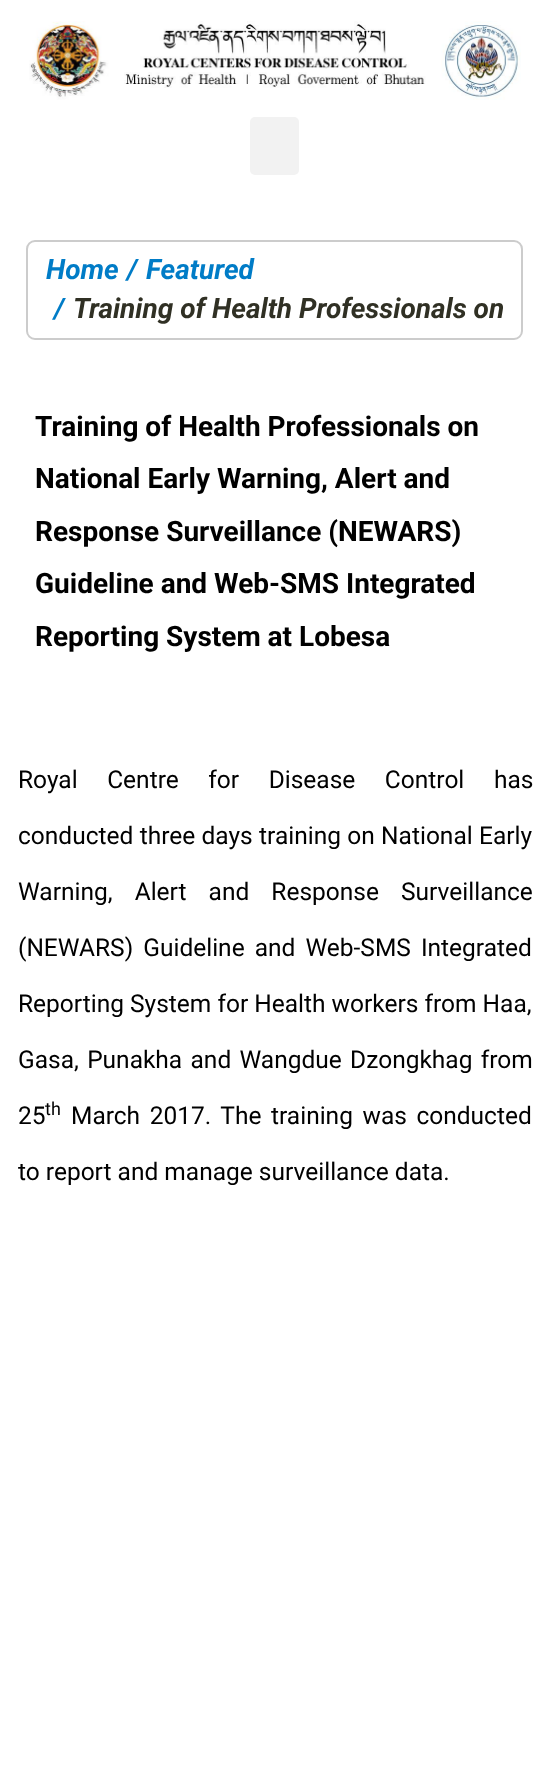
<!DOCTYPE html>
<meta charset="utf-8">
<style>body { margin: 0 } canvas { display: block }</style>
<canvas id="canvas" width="549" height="1771"></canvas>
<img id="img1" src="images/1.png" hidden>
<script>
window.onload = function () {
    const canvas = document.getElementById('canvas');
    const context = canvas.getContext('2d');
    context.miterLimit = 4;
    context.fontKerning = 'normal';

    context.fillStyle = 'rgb(255, 255, 255)';
    context.fillRect(0, 0, 549, 1771);
    context.drawImage(document.getElementById('img1'), 29, 21, 492, 79);
    context.fillStyle = 'rgb(242, 242, 242)';
    context.beginPath();
    context.roundRect(250, 117, 49, 58, 5);
    context.fill();
    context.beginPath();
    context.roundRect(27, 241, 495, 98, 8);
    context.strokeStyle = 'rgb(204, 204, 204)';
    context.lineWidth = 2;
    context.stroke();
    context.font = 'italic bold 28px Roboto';
    context.fillStyle = 'rgb(0, 124, 199)';
    context.fillText('Home', 46, 279);
    context.fillText('/', 127, 279);
    context.fillText('Featured', 146, 279);
    context.fillText('/', 54, 318);
    context.fillStyle = 'rgb(48, 48, 36)';
    context.fillText('Training of Health Professionals on', 73, 318);
    context.font = 'bold 28px Roboto';
    context.fillStyle = 'rgb(0, 0, 0)';
    context.fillText('Training of Health Professionals on', 35, 436);
    context.fillText('National Early Warning, Alert and', 35, 488);
    context.fillText('Response Surveillance (NEWARS)', 35, 541);
    context.fillText('Guideline and Web-SMS Integrated', 35, 593);
    context.fillText('Reporting System at Lobesa', 35, 646);
    context.wordSpacing = '23.5px';
    context.font = '24.5px Roboto';
    context.fillText('Royal Centre for Disease Control has', 18, 788);
    context.wordSpacing = '0.25px';
    context.fillText('conducted three days training on National Early', 18, 844);
    context.wordSpacing = '16px';
    context.fillText('Warning, Alert and Response Surveillance', 18, 900);
    context.wordSpacing = '4px';
    context.fillText('(NEWARS) Guideline and Web-SMS Integrated', 18, 956);
    context.wordSpacing = '0px';
    context.fillText('Reporting System for Health workers from Haa,', 18, 1012);
    context.wordSpacing = '2.25px';
    context.fillText('Gasa, Punakha and Wangdue Dzongkhag from', 18, 1068);
    context.wordSpacing = '0px';
    context.fillText('25', 18, 1124);
    context.font = '18px Roboto';
    context.fillText('th', 45, 1115);
    context.wordSpacing = '3.5px';
    context.font = '24.5px Roboto';
    context.fillText('March 2017. The training was conducted', 71, 1124);
    context.wordSpacing = '0px';
    context.fillText('to report and manage surveillance data.', 18, 1180);
};
</script>
